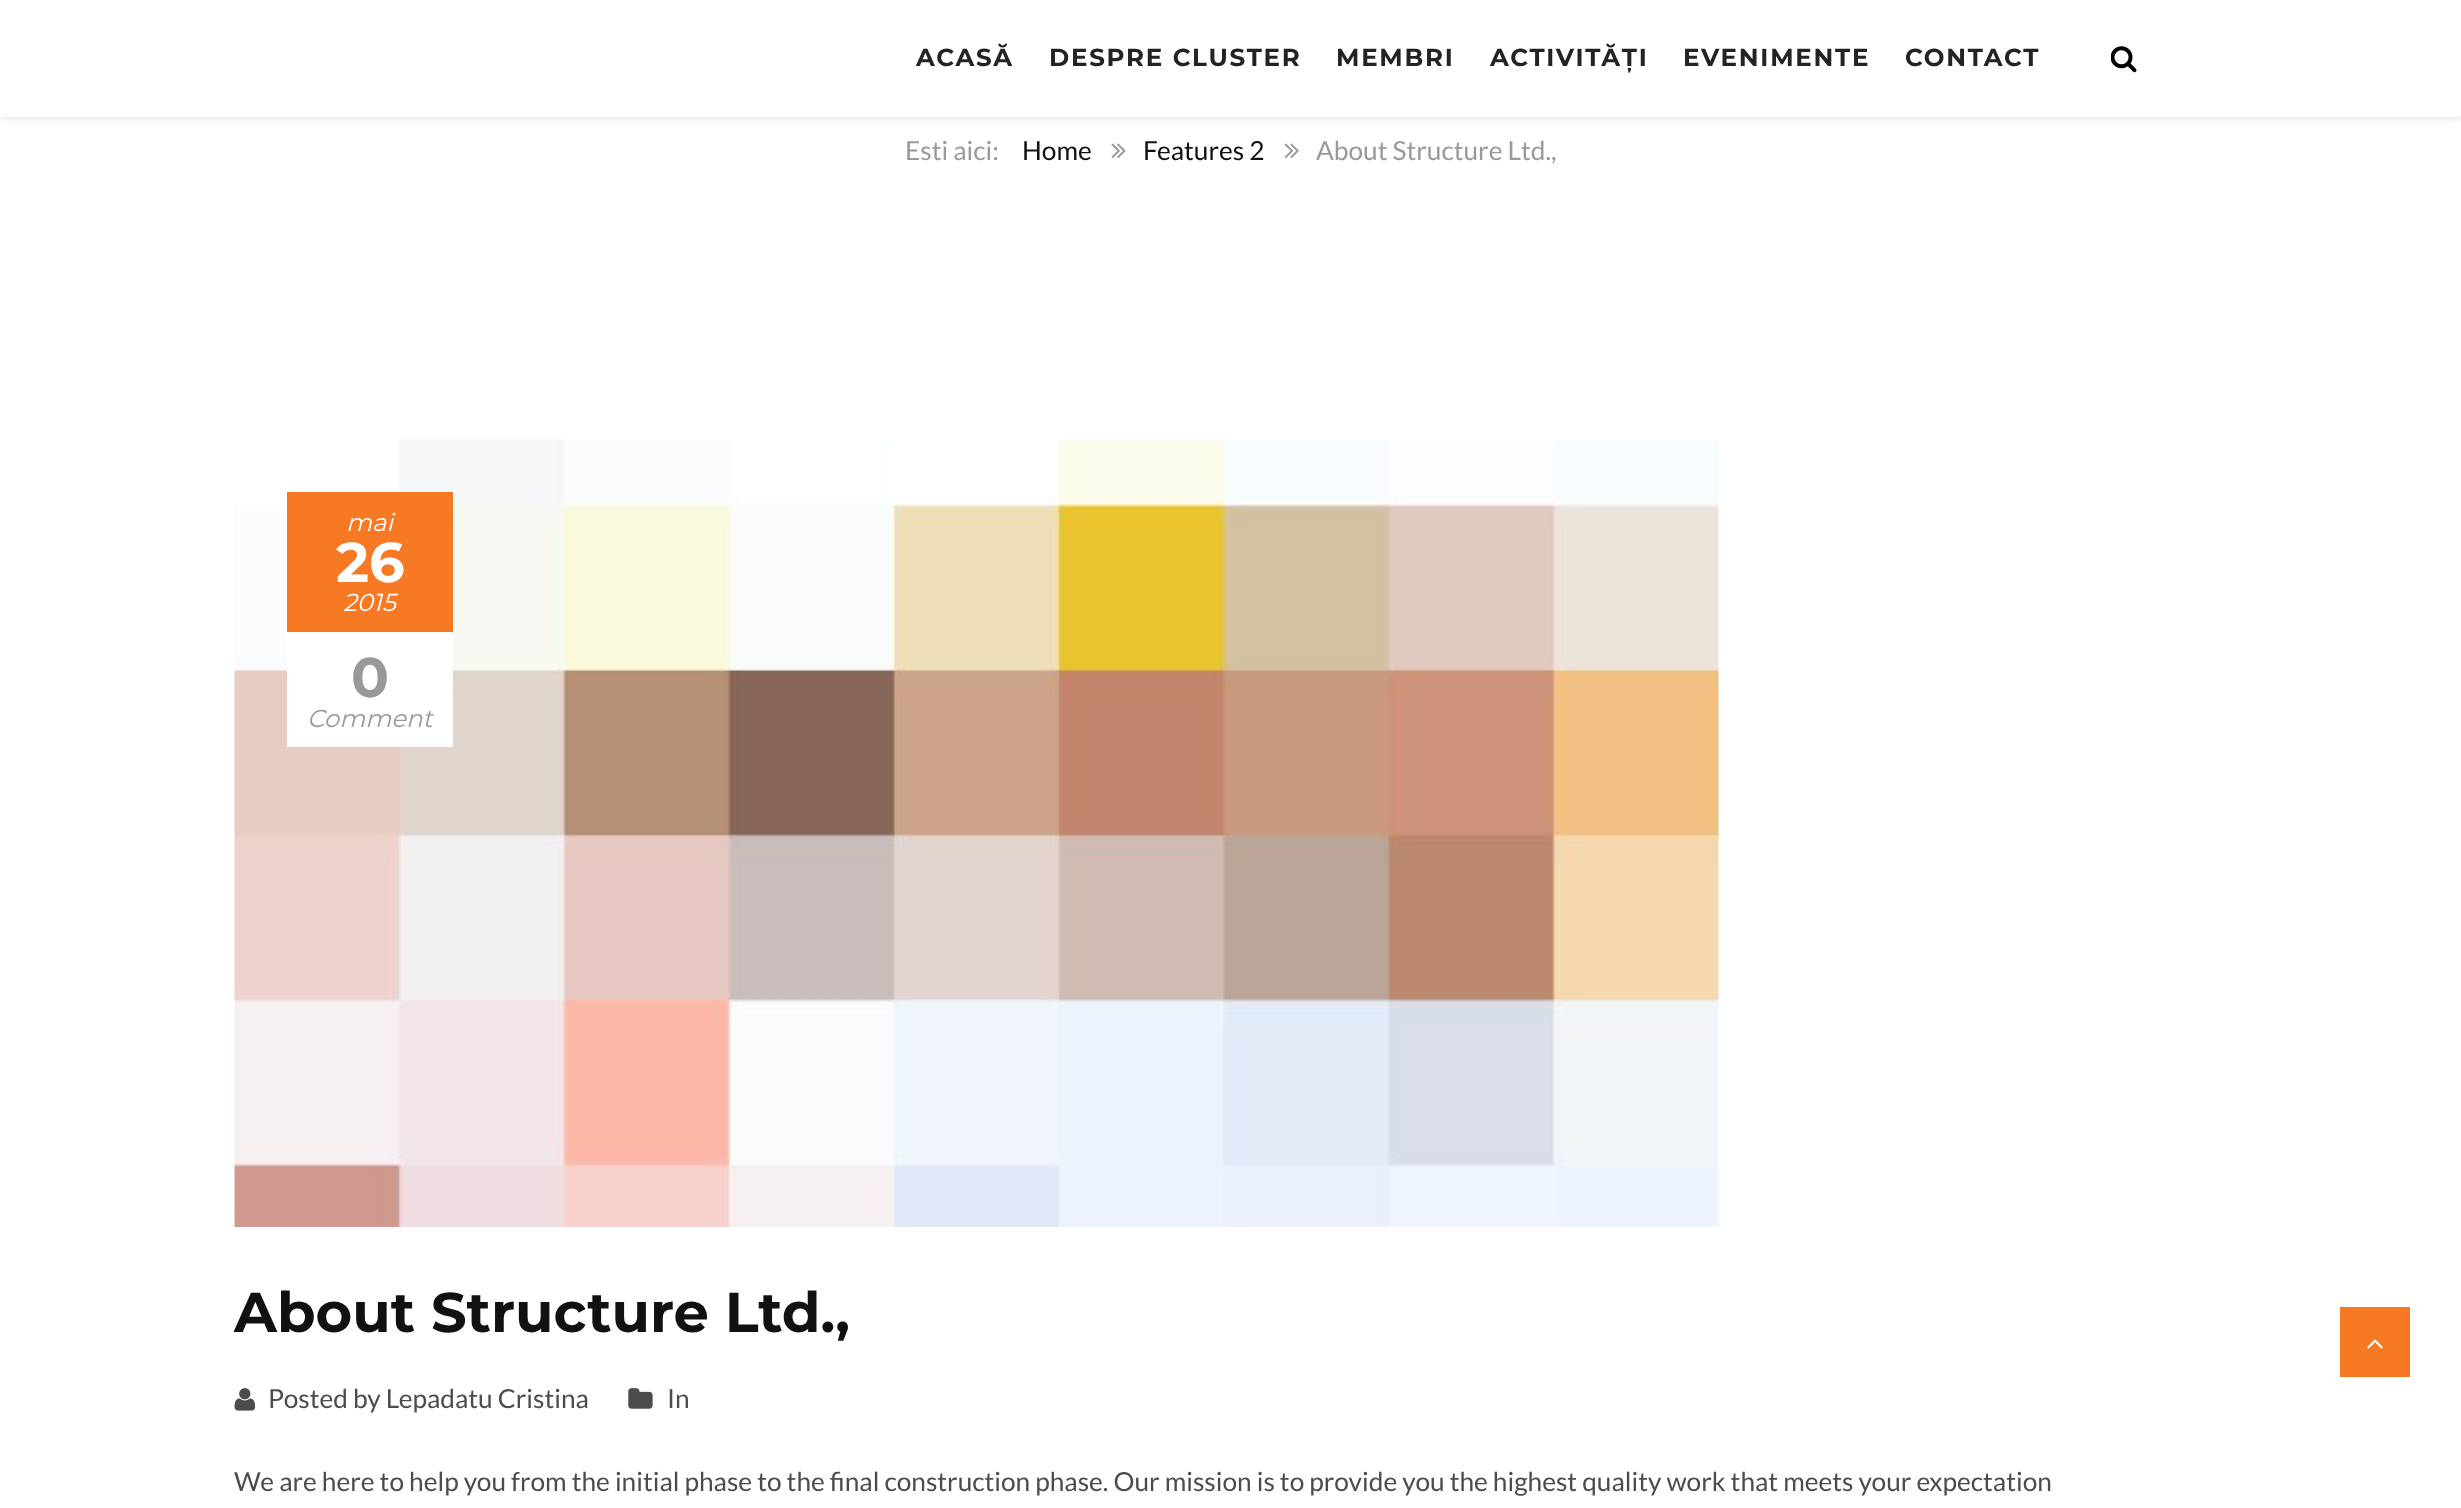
<!DOCTYPE html>
<meta charset="utf-8">
<style>body { margin: 0 } canvas { display: block }</style>
<canvas id="canvas" width="2461" height="1508"></canvas>
<img id="img1" src="images/1.png" hidden>
<img id="img2" src="images/2.png" hidden>
<img id="img3" src="images/3.png" hidden>
<img id="img4" src="images/4.png" hidden>
<img id="img5" src="images/5.png" hidden>
<img id="img6" src="images/6.png" hidden>
<img id="img7" src="images/7.png" hidden>
<script>
window.onload = function () {
    const canvas = document.getElementById('canvas');
    const context = canvas.getContext('2d');
    context.miterLimit = 4;
    context.fontKerning = 'normal';

    context.fillStyle = 'rgb(255, 255, 255)';
    context.fillRect(0, 0, 2461, 1508);
    context.fillStyle = 'rgba(0, 0, 0, 0.1)';
    context.filter = 'blur(3.5px)';
    context.beginPath();
    context.rect(0, 2, 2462, 117);
    context.fill();
    context.filter = 'none';
    context.fillStyle = 'rgb(255, 255, 255)';
    context.fillRect(0, 0, 2461, 117);
    context.drawImage(document.getElementById('img1'), 2111, 46, 26, 27);
    context.drawImage(document.getElementById('img2'), 1111, 143, 15, 15);
    context.drawImage(document.getElementById('img3'), 1284, 143, 15, 15);
    context.drawImage(document.getElementById('img4'), 234, 439, 1485, 788);
    context.fillStyle = 'rgb(247, 121, 36)';
    context.fillRect(287, 492, 166, 140);
    context.fillStyle = 'rgb(255, 255, 255)';
    context.fillRect(287, 632, 166, 115);
    context.drawImage(document.getElementById('img5'), 234, 1388, 22, 23);
    context.drawImage(document.getElementById('img6'), 628, 1388, 25, 21);
    context.fillStyle = 'rgb(247, 121, 36)';
    context.fillRect(2340, 1307, 70, 70);
    context.drawImage(document.getElementById('img7'), 2367, 1339, 16, 10);
    context.letterSpacing = '1.75px';
    context.font = 'bold 24.5px Montserrat';
    context.fillStyle = 'rgb(35, 35, 35)';
    context.fillText('ACASĂ', 916, 66);
    context.fillText('DESPRE CLUSTER', 1049, 66);
    context.fillText('MEMBRI', 1336, 66);
    context.fillText('ACTIVITĂȚI', 1490, 66);
    context.fillText('EVENIMENTE', 1683, 66);
    context.fillText('CONTACT', 1905, 66);
    context.letterSpacing = '0px';
    context.font = '26.25px Lato';
    context.fillStyle = 'rgb(153, 153, 153)';
    context.fillText('Esti aici:', 905, 160);
    context.fillStyle = 'rgb(17, 17, 17)';
    context.fillText('Home', 1022, 160);
    context.fillText('Features 2', 1143, 160);
    context.fillStyle = 'rgb(153, 153, 153)';
    context.fillText('About Structure Ltd.,', 1316, 160);
    context.font = 'italic 24.5px Montserrat';
    context.fillStyle = 'rgb(255, 255, 255)';
    context.fillText('mai', 346, 531);
    context.font = 'bold 56px Montserrat';
    context.fillText('26', 336, 582);
    context.font = 'italic 24.5px Montserrat';
    context.fillText('2015', 343, 611);
    context.font = 'bold 56px Montserrat';
    context.fillStyle = 'rgb(153, 153, 153)';
    context.fillText('0', 351, 697);
    context.font = 'italic 24.5px Montserrat';
    context.fillText('Comment', 307, 727);
    context.font = 'bold 56px Montserrat';
    context.fillStyle = 'rgb(17, 17, 17)';
    context.fillText('About Structure Ltd.,', 234, 1332);
    context.font = '26.25px Lato';
    context.fillStyle = 'rgb(76, 76, 76)';
    context.fillText('Posted by Lepadatu Cristina', 268, 1408);
    context.fillText('In', 667, 1408);
    context.fillText('We are here to help you from the initial phase to the final construction phase. Our mission is to provide you the highest quality work that meets your expectation', 234, 1491);
};
</script>
